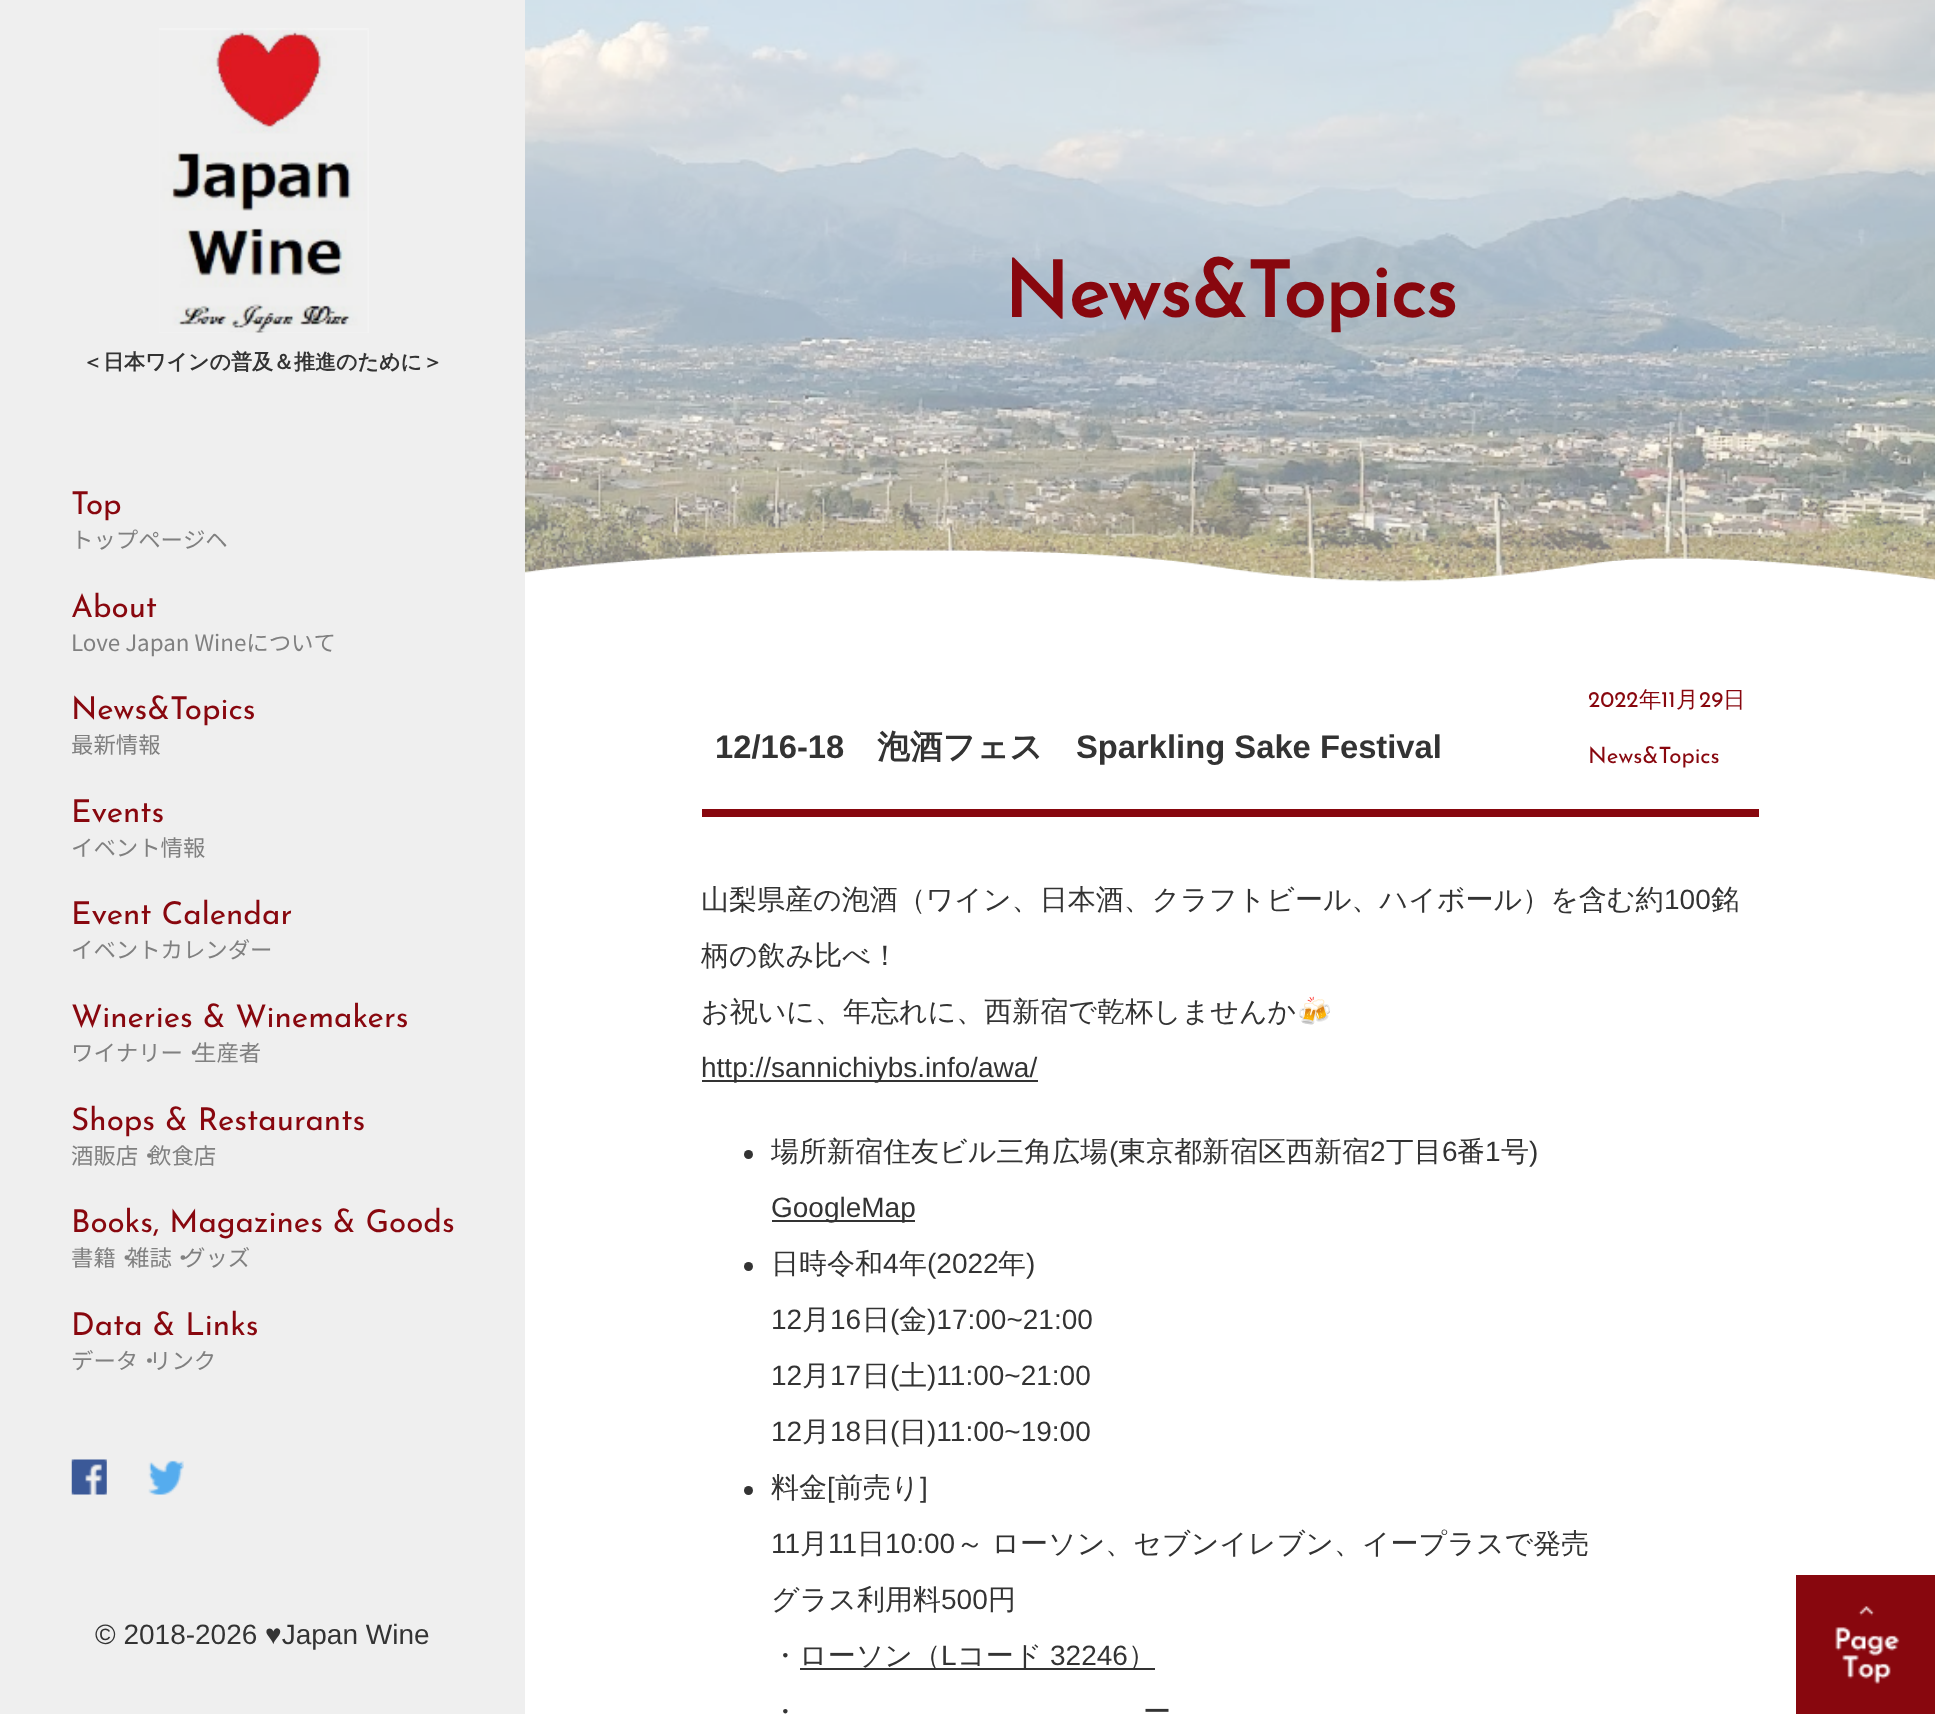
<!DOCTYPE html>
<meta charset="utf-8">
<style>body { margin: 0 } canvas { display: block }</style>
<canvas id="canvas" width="1935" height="1714"></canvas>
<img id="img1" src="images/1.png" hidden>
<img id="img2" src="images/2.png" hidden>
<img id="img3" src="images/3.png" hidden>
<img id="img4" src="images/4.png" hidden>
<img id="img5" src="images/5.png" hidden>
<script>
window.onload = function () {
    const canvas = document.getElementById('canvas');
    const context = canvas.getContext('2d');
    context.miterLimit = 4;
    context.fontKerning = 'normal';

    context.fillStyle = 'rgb(255, 255, 255)';
    context.fillRect(0, 0, 1935, 1714);
    context.fillStyle = 'rgb(239, 239, 239)';
    context.fillRect(0, 0, 525, 1714);
    context.drawImage(document.getElementById('img1'), 159, 28, 210, 305);
    context.drawImage(document.getElementById('img2'), 71, 1459, 36, 36);
    context.drawImage(document.getElementById('img3'), 148, 1460, 36, 35);
    context.drawImage(document.getElementById('img4'), 525, 0, 1410, 582);
    context.fillStyle = 'rgb(136, 7, 14)';
    context.fillRect(702, 809, 1057, 8);
    context.fillStyle = 'rgb(51, 51, 51)';
    context.fillRect(702, 1080, 336, 2);
    context.beginPath();
    context.arc(748.5, 1154.5, 4.5, 0, 2 * Math.PI);
    context.fill();
    context.fillRect(772, 1220, 143, 2);
    context.beginPath();
    context.arc(748.5, 1266.5, 4.5, 0, 2 * Math.PI);
    context.fill();
    context.beginPath();
    context.arc(748.5, 1490.5, 4.5, 0, 2 * Math.PI);
    context.fill();
    context.fillRect(800, 1668, 355, 2);
    context.fillStyle = 'rgb(136, 7, 14)';
    context.fillRect(1796, 1575, 139, 139);
    context.drawImage(document.getElementById('img5'), 1835, 1606, 65, 78);
    context.font = 'bold 21px WenQuanYi Zen Hei';
    context.fillStyle = 'rgb(51, 51, 51)';
    context.fillText('＜日本ワインの普及＆推進のために＞', 82, 369);
    context.font = '100 31.4px Josefin Sans';
    context.fillStyle = 'rgb(136, 7, 14)';
    context.fillText('Top', 71, 514);
    context.font = '22.4px Noto Sans JP';
    context.fillStyle = 'rgb(128, 128, 128)';
    context.fillText('トップページヘ', 71, 548);
    context.font = '100 31.4px Josefin Sans';
    context.fillStyle = 'rgb(136, 7, 14)';
    context.fillText('About', 71, 617);
    context.font = '22.4px Noto Sans JP';
    context.fillStyle = 'rgb(128, 128, 128)';
    context.fillText('Love Japan Wineについて', 71, 651);
    context.font = '100 31.4px Josefin Sans';
    context.fillStyle = 'rgb(136, 7, 14)';
    context.fillText('News&Topics', 71, 719);
    context.font = '22.4px Noto Sans JP';
    context.fillStyle = 'rgb(128, 128, 128)';
    context.fillText('最新情報', 71, 753);
    context.font = '100 31.4px Josefin Sans';
    context.fillStyle = 'rgb(136, 7, 14)';
    context.fillText('Events', 71, 822);
    context.font = '22.4px Noto Sans JP';
    context.fillStyle = 'rgb(128, 128, 128)';
    context.fillText('イベント情報', 71, 856);
    context.font = '100 31.4px Josefin Sans';
    context.fillStyle = 'rgb(136, 7, 14)';
    context.fillText('Event Calendar', 71, 924);
    context.font = '22.4px Noto Sans JP';
    context.fillStyle = 'rgb(128, 128, 128)';
    context.fillText('イベントカレンダー', 71, 958);
    context.font = '100 31.4px Josefin Sans';
    context.fillStyle = 'rgb(136, 7, 14)';
    context.fillText('Wineries & Winemakers', 71, 1027);
    context.font = '22.4px Noto Sans JP';
    context.fillStyle = 'rgb(128, 128, 128)';
    context.fillText('ワイナリー・', 71, 1061);
    context.fillText('生産者', 194, 1061);
    context.font = '100 31.4px Josefin Sans';
    context.fillStyle = 'rgb(136, 7, 14)';
    context.fillText('Shops & Restaurants', 71, 1130);
    context.font = '22.4px Noto Sans JP';
    context.fillStyle = 'rgb(128, 128, 128)';
    context.fillText('酒販店・', 71, 1164);
    context.fillText('飲食店', 149, 1164);
    context.font = '100 31.4px Josefin Sans';
    context.fillStyle = 'rgb(136, 7, 14)';
    context.fillText('Books, Magazines & Goods', 71, 1232);
    context.font = '22.4px Noto Sans JP';
    context.fillStyle = 'rgb(128, 128, 128)';
    context.fillText('書籍・', 71, 1266);
    context.fillText('雑誌・', 127, 1266);
    context.fillText('グッズ', 183, 1266);
    context.font = '100 31.4px Josefin Sans';
    context.fillStyle = 'rgb(136, 7, 14)';
    context.fillText('Data & Links', 71, 1335);
    context.font = '22.4px Noto Sans JP';
    context.fillStyle = 'rgb(128, 128, 128)';
    context.fillText('データ・', 71, 1369);
    context.fillText('リンク', 149, 1369);
    context.font = '28px Liberation Sans';
    context.fillStyle = 'rgb(51, 51, 51)';
    context.fillText('© 2018-2026 ♥Japan Wine', 95, 1644);
    context.font = 'bold 77px Josefin Sans';
    context.fillStyle = 'rgb(136, 7, 14)';
    context.fillText('News&Topics', 1004, 317);
    context.font = 'bold 32.75px Liberation Sans';
    context.fillStyle = 'rgb(51, 51, 51)';
    context.fillText('12/16-18', 715, 758);
    context.font = 'bold 32.75px WenQuanYi Zen Hei';
    context.fillText('泡酒フェス', 877, 758);
    context.font = 'bold 32.75px Liberation Sans';
    context.fillText('Sparkling Sake Festival', 1076, 758);
    context.font = '100 22.4px Josefin Sans';
    context.fillStyle = 'rgb(136, 7, 14)';
    context.fillText('2022', 1588, 707);
    context.font = '500 22.4px WenQuanYi Zen Hei';
    context.fillText('年', 1639, 707);
    context.font = '100 22.4px Josefin Sans';
    context.fillText('11', 1661, 707);
    context.font = '500 22.4px WenQuanYi Zen Hei';
    context.fillText('月', 1676, 707);
    context.font = '100 22.4px Josefin Sans';
    context.fillText('29', 1699, 707);
    context.font = '500 22.4px WenQuanYi Zen Hei';
    context.fillText('日', 1723, 707);
    context.font = '100 22.4px Josefin Sans';
    context.fillText('News&Topics', 1588, 763);
    context.font = '500 28px WenQuanYi Zen Hei';
    context.fillStyle = 'rgb(51, 51, 51)';
    context.fillText('山梨県産の泡酒（ワイン、日本酒、クラフトビール、ハイボール）を含む約', 701, 909);
    context.font = '28px Liberation Sans';
    context.fillText('100', 1664, 909);
    context.font = '500 28px WenQuanYi Zen Hei';
    context.fillText('銘', 1711, 909);
    context.fillText('柄の飲み比べ！', 701, 965);
    context.fillText('お祝いに、年忘れに、西新宿で乾杯しませんか', 701, 1021);
    context.font = '28px Noto Color Emoji';
    context.fillText('🍻', 1297, 1021);
    context.font = '28px Liberation Sans';
    context.fillText('http://sannichiybs.info/awa/', 701, 1077);
    context.font = '500 28px WenQuanYi Zen Hei';
    context.fillText('場所新宿住友ビル三角広場', 771, 1161);
    context.font = '28px Liberation Sans';
    context.fillText('(', 1109, 1161);
    context.font = '500 28px WenQuanYi Zen Hei';
    context.fillText('東京都新宿区西新宿', 1118, 1161);
    context.font = '28px Liberation Sans';
    context.fillText('2', 1370, 1161);
    context.font = '500 28px WenQuanYi Zen Hei';
    context.fillText('丁目', 1386, 1161);
    context.font = '28px Liberation Sans';
    context.fillText('6', 1442, 1161);
    context.font = '500 28px WenQuanYi Zen Hei';
    context.fillText('番', 1457, 1161);
    context.font = '28px Liberation Sans';
    context.fillText('1', 1485, 1161);
    context.font = '500 28px WenQuanYi Zen Hei';
    context.fillText('号', 1501, 1161);
    context.font = '28px Liberation Sans';
    context.fillText(')', 1529, 1161);
    context.fillText('GoogleMap', 771, 1217);
    context.font = '500 28px WenQuanYi Zen Hei';
    context.fillText('日時令和', 771, 1273);
    context.font = '28px Liberation Sans';
    context.fillText('4', 883, 1273);
    context.font = '500 28px WenQuanYi Zen Hei';
    context.fillText('年', 899, 1273);
    context.font = '28px Liberation Sans';
    context.fillText('(2022', 927, 1273);
    context.font = '500 28px WenQuanYi Zen Hei';
    context.fillText('年', 998, 1273);
    context.font = '28px Liberation Sans';
    context.fillText(')', 1026, 1273);
    context.fillText('12', 771, 1329);
    context.font = '500 28px WenQuanYi Zen Hei';
    context.fillText('月', 802, 1329);
    context.font = '28px Liberation Sans';
    context.fillText('16', 830, 1329);
    context.font = '500 28px WenQuanYi Zen Hei';
    context.fillText('日', 862, 1329);
    context.font = '28px Liberation Sans';
    context.fillText('(', 890, 1329);
    context.font = '500 28px WenQuanYi Zen Hei';
    context.fillText('金', 899, 1329);
    context.font = '28px Liberation Sans';
    context.fillText(')17:00~21:00', 927, 1329);
    context.fillText('12', 771, 1385);
    context.font = '500 28px WenQuanYi Zen Hei';
    context.fillText('月', 802, 1385);
    context.font = '28px Liberation Sans';
    context.fillText('17', 830, 1385);
    context.font = '500 28px WenQuanYi Zen Hei';
    context.fillText('日', 862, 1385);
    context.font = '28px Liberation Sans';
    context.fillText('(', 890, 1385);
    context.font = '500 28px WenQuanYi Zen Hei';
    context.fillText('土', 899, 1385);
    context.font = '28px Liberation Sans';
    context.fillText(')11:00~21:00', 927, 1385);
    context.fillText('12', 771, 1441);
    context.font = '500 28px WenQuanYi Zen Hei';
    context.fillText('月', 802, 1441);
    context.font = '28px Liberation Sans';
    context.fillText('18', 830, 1441);
    context.font = '500 28px WenQuanYi Zen Hei';
    context.fillText('日', 862, 1441);
    context.font = '28px Liberation Sans';
    context.fillText('(', 890, 1441);
    context.font = '500 28px WenQuanYi Zen Hei';
    context.fillText('日', 899, 1441);
    context.font = '28px Liberation Sans';
    context.fillText(')11:00~19:00', 927, 1441);
    context.font = '500 28px WenQuanYi Zen Hei';
    context.fillText('料金', 771, 1497);
    context.font = '28px Liberation Sans';
    context.fillText('[', 827, 1497);
    context.font = '500 28px WenQuanYi Zen Hei';
    context.fillText('前売り', 835, 1497);
    context.font = '28px Liberation Sans';
    context.fillText(']', 920, 1497);
    context.fillText('11', 771, 1553);
    context.font = '500 28px WenQuanYi Zen Hei';
    context.fillText('月', 800, 1553);
    context.font = '28px Liberation Sans';
    context.fillText('11', 828, 1553);
    context.font = '500 28px WenQuanYi Zen Hei';
    context.fillText('日', 857, 1553);
    context.font = '28px Liberation Sans';
    context.fillText('10:00', 885, 1553);
    context.wordSpacing = '-1px';
    context.font = '500 28px WenQuanYi Zen Hei';
    context.fillText('～ ローソン、セブンイレブン、イープラスで発売', 956, 1553);
    context.wordSpacing = '0px';
    context.fillText('グラス利用料', 771, 1609);
    context.font = '28px Liberation Sans';
    context.fillText('500', 941, 1609);
    context.font = '500 28px WenQuanYi Zen Hei';
    context.fillText('円', 988, 1609);
    context.fillText('・', 771, 1665);
    context.fillText('ローソン（', 799, 1665);
    context.font = '28px Liberation Sans';
    context.fillText('L', 941, 1665);
    context.font = '500 28px WenQuanYi Zen Hei';
    context.fillText('コード', 957, 1665);
    context.font = '28px Liberation Sans';
    context.fillText('32246', 1050, 1665);
    context.font = '500 28px WenQuanYi Zen Hei';
    context.fillText('）', 1128, 1665);
    context.fillText('・', 771, 1721);
    context.fillText('ー', 1143, 1721);
};
</script>
